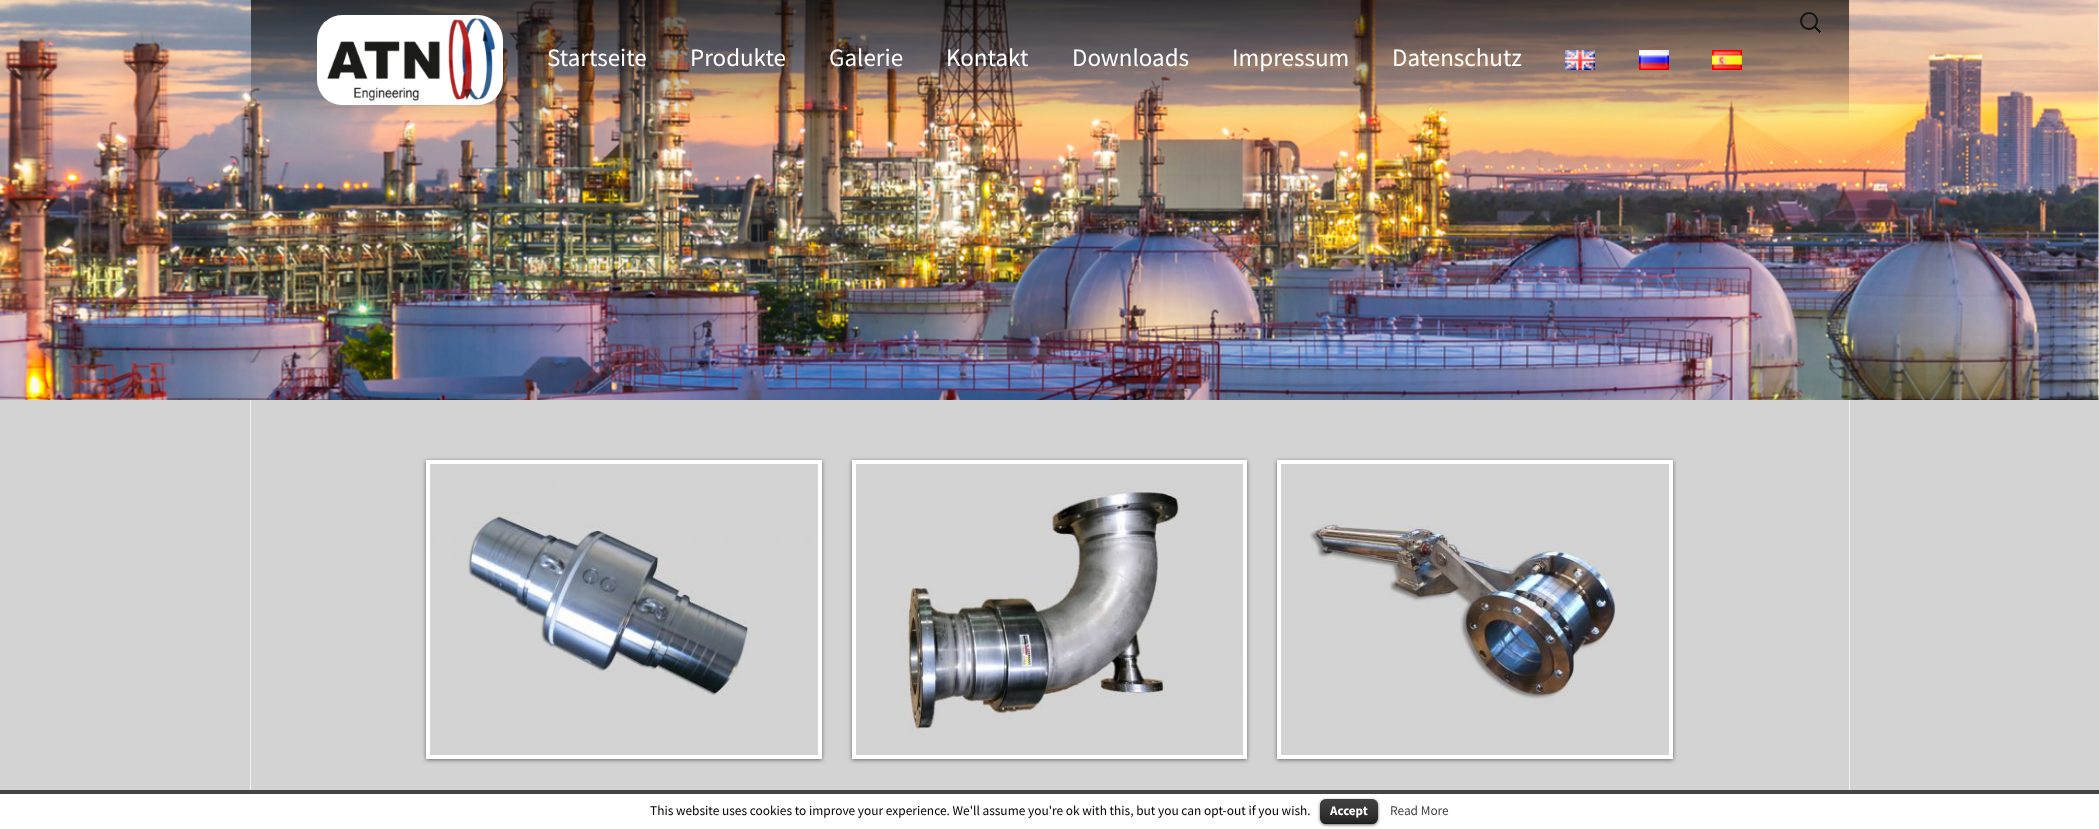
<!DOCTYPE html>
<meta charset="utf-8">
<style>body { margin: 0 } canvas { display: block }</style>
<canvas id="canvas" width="2099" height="829"></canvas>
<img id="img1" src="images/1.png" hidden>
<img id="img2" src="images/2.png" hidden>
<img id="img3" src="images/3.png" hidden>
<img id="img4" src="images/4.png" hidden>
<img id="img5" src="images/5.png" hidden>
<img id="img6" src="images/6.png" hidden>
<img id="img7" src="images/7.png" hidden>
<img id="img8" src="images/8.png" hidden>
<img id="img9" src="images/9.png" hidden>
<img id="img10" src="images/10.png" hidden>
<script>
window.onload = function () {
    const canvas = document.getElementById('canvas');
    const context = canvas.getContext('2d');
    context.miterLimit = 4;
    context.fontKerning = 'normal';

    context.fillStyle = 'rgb(211, 211, 211)';
    context.fillRect(0, 0, 2099, 829);
    context.fillStyle = 'rgb(242, 242, 242)';
    context.fillRect(1849, 400, 1, 390);
    context.fillRect(250, 400, 1, 390);
    context.drawImage(document.getElementById('img1'), 0, 0, 2099, 400);
    context.fillStyle = 'rgba(0, 0, 0, 0.5)';
    context.filter = 'blur(2px)';
    context.beginPath();
    context.rect(426, 461, 396, 299);
    context.fill();
    context.filter = 'none';
    context.fillStyle = 'rgb(255, 255, 255)';
    context.fillRect(426, 460, 396, 299);
    context.drawImage(document.getElementById('img2'), 430, 464, 388, 291);
    context.fillStyle = 'rgba(0, 0, 0, 0.5)';
    context.filter = 'blur(2px)';
    context.beginPath();
    context.rect(852, 461, 395, 299);
    context.fill();
    context.filter = 'none';
    context.fillStyle = 'rgb(255, 255, 255)';
    context.fillRect(852, 460, 395, 299);
    context.drawImage(document.getElementById('img3'), 856, 464, 387, 291);
    context.fillStyle = 'rgba(0, 0, 0, 0.5)';
    context.filter = 'blur(2px)';
    context.beginPath();
    context.rect(1277, 461, 396, 299);
    context.fill();
    context.filter = 'none';
    context.fillStyle = 'rgb(255, 255, 255)';
    context.fillRect(1277, 460, 396, 299);
    context.drawImage(document.getElementById('img4'), 1281, 464, 388, 291);
    context.drawImage(document.getElementById('img5'), 1800, 12, 21, 21);
    context.beginPath();
    context.roundRect(317, 15, 186, 90, 25);
    context.fill();
    context.drawImage(document.getElementById('img6'), 327, 18, 169, 83);
    context.drawImage(document.getElementById('img7'), 1565, 50, 30, 20);
    context.drawImage(document.getElementById('img8'), 1639, 50, 30, 20);
    context.drawImage(document.getElementById('img9'), 1712, 50, 30, 20);
    context.fillRect(0, 794, 2099, 35);
    context.fillStyle = 'rgb(68, 68, 68)';
    context.fillRect(0, 790, 2099, 4);
    context.fillStyle = 'rgba(0, 0, 0, 0.6)';
    context.filter = 'blur(1.5px)';
    context.beginPath();
    context.roundRect(1320, 800, 58, 25, 6);
    context.fill();
    context.filter = 'none';
    context.fillStyle = 'rgb(0, 0, 0)';
    context.beginPath();
    context.roundRect(1320, 799, 58, 25, 6);
    context.fill();
    context.drawImage(document.getElementById('img10'), 1320, 799, 58, 25);
    context.fillStyle = 'rgba(0, 0, 0, 0.25)';
    context.fillRect(1323, 823, 52, 1);
    context.font = '25px Source Sans Pro';
    context.fillStyle = 'rgb(255, 255, 255)';
    context.fillText('Startseite', 547, 66);
    context.fillText('Produkte', 690, 66);
    context.fillText('Galerie', 829, 66);
    context.fillText('Kontakt', 946, 66);
    context.fillText('Downloads', 1072, 66);
    context.fillText('Impressum', 1232, 66);
    context.fillText('Datenschutz', 1392, 66);
    context.font = '13.35px Source Sans Pro';
    context.fillStyle = 'rgb(0, 0, 0)';
    context.fillText('This website uses cookies to improve your experience. We\'ll assume you\'re ok with this, but you can opt-out if you wish.', 650, 815);
    context.font = 'bold 13px Source Sans Pro';
    context.fillStyle = 'rgb(255, 255, 255)';
    context.fillText('Accept', 1330, 815);
    context.font = '13.35px Source Sans Pro';
    context.fillStyle = 'rgb(68, 68, 68)';
    context.fillText('Read More', 1390, 815);
};
</script>
